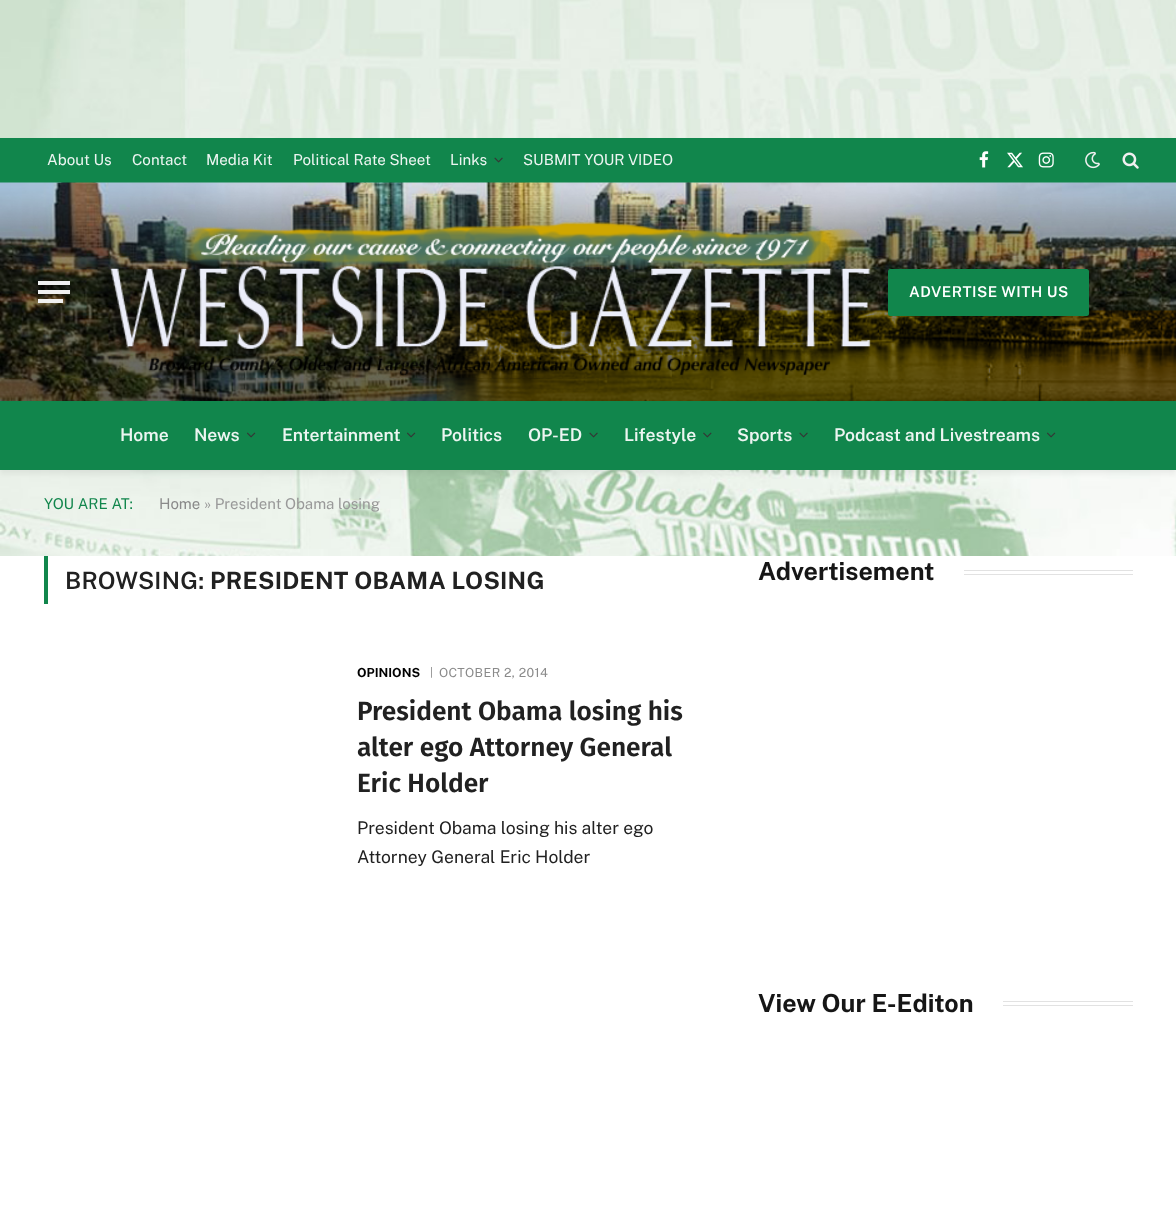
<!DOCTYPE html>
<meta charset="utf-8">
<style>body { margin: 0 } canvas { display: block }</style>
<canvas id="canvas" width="1176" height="1215"></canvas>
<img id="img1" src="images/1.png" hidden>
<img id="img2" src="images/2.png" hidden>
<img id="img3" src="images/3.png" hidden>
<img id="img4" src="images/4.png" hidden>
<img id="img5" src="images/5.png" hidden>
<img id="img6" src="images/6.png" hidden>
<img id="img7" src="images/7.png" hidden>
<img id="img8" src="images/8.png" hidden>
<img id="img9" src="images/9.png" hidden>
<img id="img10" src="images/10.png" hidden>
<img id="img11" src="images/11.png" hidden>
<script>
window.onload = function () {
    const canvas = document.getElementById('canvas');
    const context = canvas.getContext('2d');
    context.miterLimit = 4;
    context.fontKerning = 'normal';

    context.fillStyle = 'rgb(255, 255, 255)';
    context.fillRect(0, 0, 1176, 1215);
    context.drawImage(document.getElementById('img1'), 0, 0, 1176, 556);
    context.fillStyle = 'rgba(0, 0, 0, 0.05)';
    context.filter = 'blur(2.5px)';
    context.beginPath();
    context.rect(0, 141, 1176, 333);
    context.fill();
    context.filter = 'none';
    context.fillStyle = 'rgb(17, 134, 76)';
    context.fillRect(0, 138, 1176, 45);
    context.drawImage(document.getElementById('img2'), 494, 157, 9, 6);
    context.drawImage(document.getElementById('img3'), 979, 151, 10, 17);
    context.drawImage(document.getElementById('img4'), 1007, 152, 16, 16);
    context.drawImage(document.getElementById('img5'), 1038, 152, 16, 16);
    context.drawImage(document.getElementById('img6'), 1085, 151, 15, 18);
    context.drawImage(document.getElementById('img7'), 1122, 152, 17, 17);
    context.drawImage(document.getElementById('img8'), 0, 182, 1176, 219);
    context.fillStyle = 'rgb(240, 240, 240)';
    context.fillRect(38, 299, 25, 4);
    context.fillRect(38, 281, 32, 4);
    context.fillRect(38, 290, 32, 4);
    context.drawImage(document.getElementById('img9'), 104, 221, 767, 155);
    context.fillStyle = 'rgba(0, 0, 0, 0.16)';
    context.filter = 'blur(4.5px)';
    context.beginPath();
    context.rect(893, 276, 191, 38);
    context.fill();
    context.filter = 'none';
    context.fillStyle = 'rgb(17, 134, 76)';
    context.beginPath();
    context.roundRect(888, 269, 201, 47, 2.5);
    context.fill();
    context.fillRect(0, 401, 1176, 69);
    context.drawImage(document.getElementById('img10'), 247, 432, 9, 6);
    context.drawImage(document.getElementById('img10'), 407, 432, 9, 6);
    context.drawImage(document.getElementById('img2'), 589, 432, 9, 6);
    context.drawImage(document.getElementById('img11'), 703, 432, 9, 6);
    context.drawImage(document.getElementById('img2'), 799, 432, 9, 6);
    context.drawImage(document.getElementById('img10'), 1047, 432, 9, 6);
    context.fillRect(44, 556, 4, 48);
    context.fillStyle = 'rgb(226, 226, 226)';
    context.fillRect(964, 570, 169, 1);
    context.fillRect(964, 574, 169, 1);
    context.fillRect(1003, 1001, 130, 1);
    context.fillRect(1003, 1005, 130, 1);
    context.font = '15.1px Public Sans';
    context.fillStyle = 'rgb(236, 245, 241)';
    context.fillText('About Us', 47, 165);
    context.fillText('Contact', 132, 165);
    context.fillText('Media Kit', 206, 165);
    context.fillText('Political Rate Sheet', 293, 165);
    context.fillText('Links', 450, 165);
    context.fillText('SUBMIT YOUR VIDEO', 523, 165);
    context.letterSpacing = '0.5px';
    context.font = '600 15px Public Sans';
    context.fillStyle = 'rgb(255, 255, 255)';
    context.fillText('ADVERTISE WITH US', 909, 297);
    context.letterSpacing = '0px';
    context.font = '600 17.5px Public Sans';
    context.fillStyle = 'rgb(236, 245, 241)';
    context.fillText('Home', 120, 441);
    context.fillText('News', 194, 441);
    context.fillText('Entertainment', 282, 441);
    context.fillText('Politics', 441, 441);
    context.fillText('OP-ED', 528, 441);
    context.fillText('Lifestyle', 624, 441);
    context.fillText('Sports', 737, 441);
    context.fillText('Podcast and Livestreams', 834, 441);
    context.font = '15px Public Sans';
    context.fillStyle = 'rgb(17, 134, 76)';
    context.fillText('YOU ARE AT:', 44, 509);
    context.fillStyle = 'rgb(138, 138, 138)';
    context.fillText('Home', 159, 509);
    context.fillStyle = 'rgb(153, 153, 153)';
    context.fillText('» President Obama losing', 204, 509);
    context.letterSpacing = '0.25px';
    context.font = '600 23.75px Public Sans';
    context.fillStyle = 'rgb(33, 33, 33)';
    context.fillText('BROWSING:', 65, 589);
    context.font = 'bold 23.75px Public Sans';
    context.fillText('PRESIDENT OBAMA LOSING', 210, 589);
    context.letterSpacing = '0px';
    context.font = 'bold 12.5px Public Sans';
    context.fillStyle = 'rgb(0, 0, 0)';
    context.fillText('OPINIONS', 357, 677);
    context.font = '11px Public Sans';
    context.fillStyle = 'rgb(138, 138, 138)';
    context.fillText('|', 430, 676);
    context.letterSpacing = '0.4px';
    context.font = '12.5px Public Sans';
    context.fillText('OCTOBER 2, 2014', 439, 677);
    context.letterSpacing = '0px';
    context.font = '600 26.25px Fira Sans';
    context.fillStyle = 'rgb(33, 33, 33)';
    context.fillText('President Obama losing his', 357, 720);
    context.fillText('alter ego Attorney General', 357, 756);
    context.fillText('Eric Holder', 357, 792);
    context.font = '17.5px Public Sans';
    context.fillText('President Obama losing his alter ego', 357, 834);
    context.fillText('Attorney General Eric Holder', 357, 863);
    context.font = 'bold 25px Public Sans';
    context.fillStyle = 'rgb(22, 22, 22)';
    context.fillText('Advertisement', 758, 580);
    context.fillText('View Our E-Editon', 758, 1012);
};
</script>
